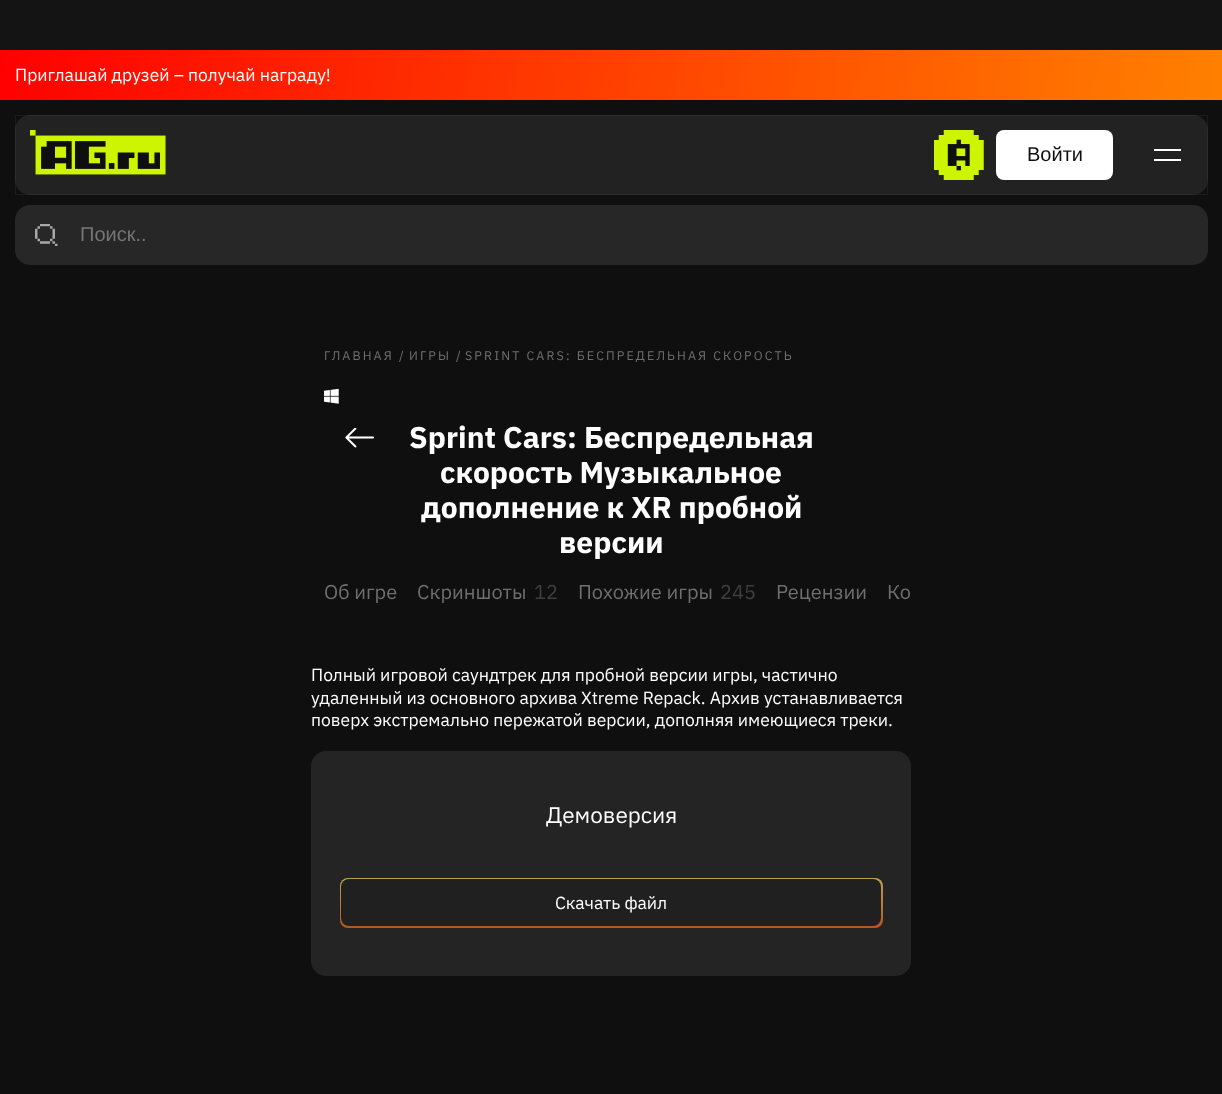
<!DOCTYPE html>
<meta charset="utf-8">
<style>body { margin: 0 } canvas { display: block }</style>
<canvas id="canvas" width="1222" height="1094"></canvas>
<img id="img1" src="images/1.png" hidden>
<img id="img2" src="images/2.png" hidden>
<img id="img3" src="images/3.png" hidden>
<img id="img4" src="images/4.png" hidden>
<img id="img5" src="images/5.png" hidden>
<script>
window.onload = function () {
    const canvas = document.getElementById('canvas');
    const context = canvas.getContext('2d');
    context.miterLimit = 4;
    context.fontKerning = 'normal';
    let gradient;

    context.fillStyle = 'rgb(15, 15, 15)';
    context.fillRect(0, 0, 1222, 1094);
    context.fillStyle = 'rgb(20, 20, 20)';
    context.fillRect(0, 0, 1222, 50);
    gradient = context.createLinearGradient(8, -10, 1214, 160);
    gradient.addColorStop(0, 'rgb(255, 0, 0)');
    gradient.addColorStop(1, 'rgb(255, 128, 0)');
    context.fillStyle = gradient;
    context.fillRect(0, 50, 1222, 50);
    context.fillStyle = 'rgb(34, 34, 34)';
    context.beginPath();
    context.roundRect(15, 115, 1193, 80, 15);
    context.fill();
    context.strokeStyle = 'rgba(255, 255, 255, 0.05)';
    context.strokeRect(15.5, 115.5, 1192, 79);
    context.drawImage(document.getElementById('img1'), 30, 130, 136, 45);
    context.drawImage(document.getElementById('img2'), 934, 130, 50, 50);
    context.fillStyle = 'rgb(255, 255, 255)';
    context.beginPath();
    context.roundRect(996, 130, 117, 50, 8);
    context.fill();
    context.beginPath();
    context.moveTo(1181, 151);
    context.lineTo(1181, 149);
    context.lineTo(1154, 149);
    context.lineTo(1154, 151);
    context.closePath();
    context.moveTo(1181, 161);
    context.lineTo(1181, 159);
    context.lineTo(1154, 159);
    context.lineTo(1154, 161);
    context.closePath();
    context.fill('evenodd');
    context.fillStyle = 'rgb(39, 39, 39)';
    context.beginPath();
    context.roundRect(15, 205, 1193, 60, 15);
    context.fill();
    context.drawImage(document.getElementById('img3'), 35, 224, 23, 22);
    context.drawImage(document.getElementById('img4'), 324, 389, 15, 15);
    context.drawImage(document.getElementById('img5'), 345, 428, 29, 20);
    context.fillStyle = 'rgb(36, 36, 36)';
    context.beginPath();
    context.roundRect(311, 751, 600, 225, 15);
    context.fill();
    gradient = context.createLinearGradient(611, 878, 611, 928);
    gradient.addColorStop(0, 'rgb(186, 163, 79)');
    gradient.addColorStop(1, 'rgb(184, 86, 30)');
    context.fillStyle = gradient;
    context.beginPath();
    context.roundRect(340, 878, 543, 50, 8);
    context.fill();
    context.fillStyle = 'rgb(32, 32, 32)';
    context.beginPath();
    context.roundRect(341, 879, 540, 47, 8);
    context.fill();
    context.font = '17.5px IBM Plex Sans';
    context.fillStyle = 'rgb(255, 255, 255)';
    context.fillText('Приглашай друзей – получай награду!', 15, 81);
    context.font = '20px Liberation Sans';
    context.fillStyle = 'rgb(15, 15, 15)';
    context.fillText('Войти', 1027, 161);
    context.fillStyle = 'rgb(117, 117, 117)';
    context.fillText('Поиск..', 80, 241);
    context.letterSpacing = '2.1px';
    context.font = '12.5px IBM Plex Sans';
    context.fillStyle = 'rgb(111, 111, 111)';
    context.fillText('ГЛАВНАЯ', 324, 360);
    context.letterSpacing = '0px';
    context.fillText('/', 399, 360);
    context.letterSpacing = '2.1px';
    context.fillText('ИГРЫ', 409, 360);
    context.letterSpacing = '0px';
    context.fillText('/', 456, 360);
    context.letterSpacing = '2.1px';
    context.fillText('SPRINT CARS: БЕСПРЕДЕЛЬНАЯ СКОРОСТЬ', 465, 360);
    context.letterSpacing = '0px';
    context.font = 'bold 30px IBM Plex Sans';
    context.fillStyle = 'rgb(255, 255, 255)';
    context.fillText('Sprint Cars: Беспредельная', 409, 448);
    context.fillText('скорость Музыкальное', 440, 483);
    context.fillText('дополнение к XR пробной', 421, 518);
    context.fillText('версии', 559, 553);
    context.font = '20px IBM Plex Sans';
    context.fillStyle = 'rgb(111, 111, 111)';
    context.fillText('Об игре', 324, 599);
    context.fillText('Скриншоты', 417, 599);
    context.fillStyle = 'rgb(63, 63, 63)';
    context.fillText('12', 534, 599);
    context.fillStyle = 'rgb(111, 111, 111)';
    context.fillText('Похожие игры', 578, 599);
    context.fillStyle = 'rgb(63, 63, 63)';
    context.fillText('245', 720, 599);
    context.fillStyle = 'rgb(111, 111, 111)';
    context.fillText('Рецензии', 776, 599);
    context.fillText('Ко', 887, 599);
    context.font = '17.5px IBM Plex Sans';
    context.fillStyle = 'rgb(255, 255, 255)';
    context.fillText('Полный игровой саундтрек для пробной версии игры, частично', 311, 681);
    context.fillText('удаленный из основного архива Xtreme Repack. Архив устанавливается', 311, 704);
    context.fillText('поверх экстремально пережатой версии, дополняя имеющиеся треки.', 311, 726);
    context.font = '22.5px IBM Plex Sans';
    context.fillText('Демоверсия', 546, 823);
    context.font = '17.5px IBM Plex Sans';
    context.fillText('Скачать файл', 555, 909);
};
</script>
